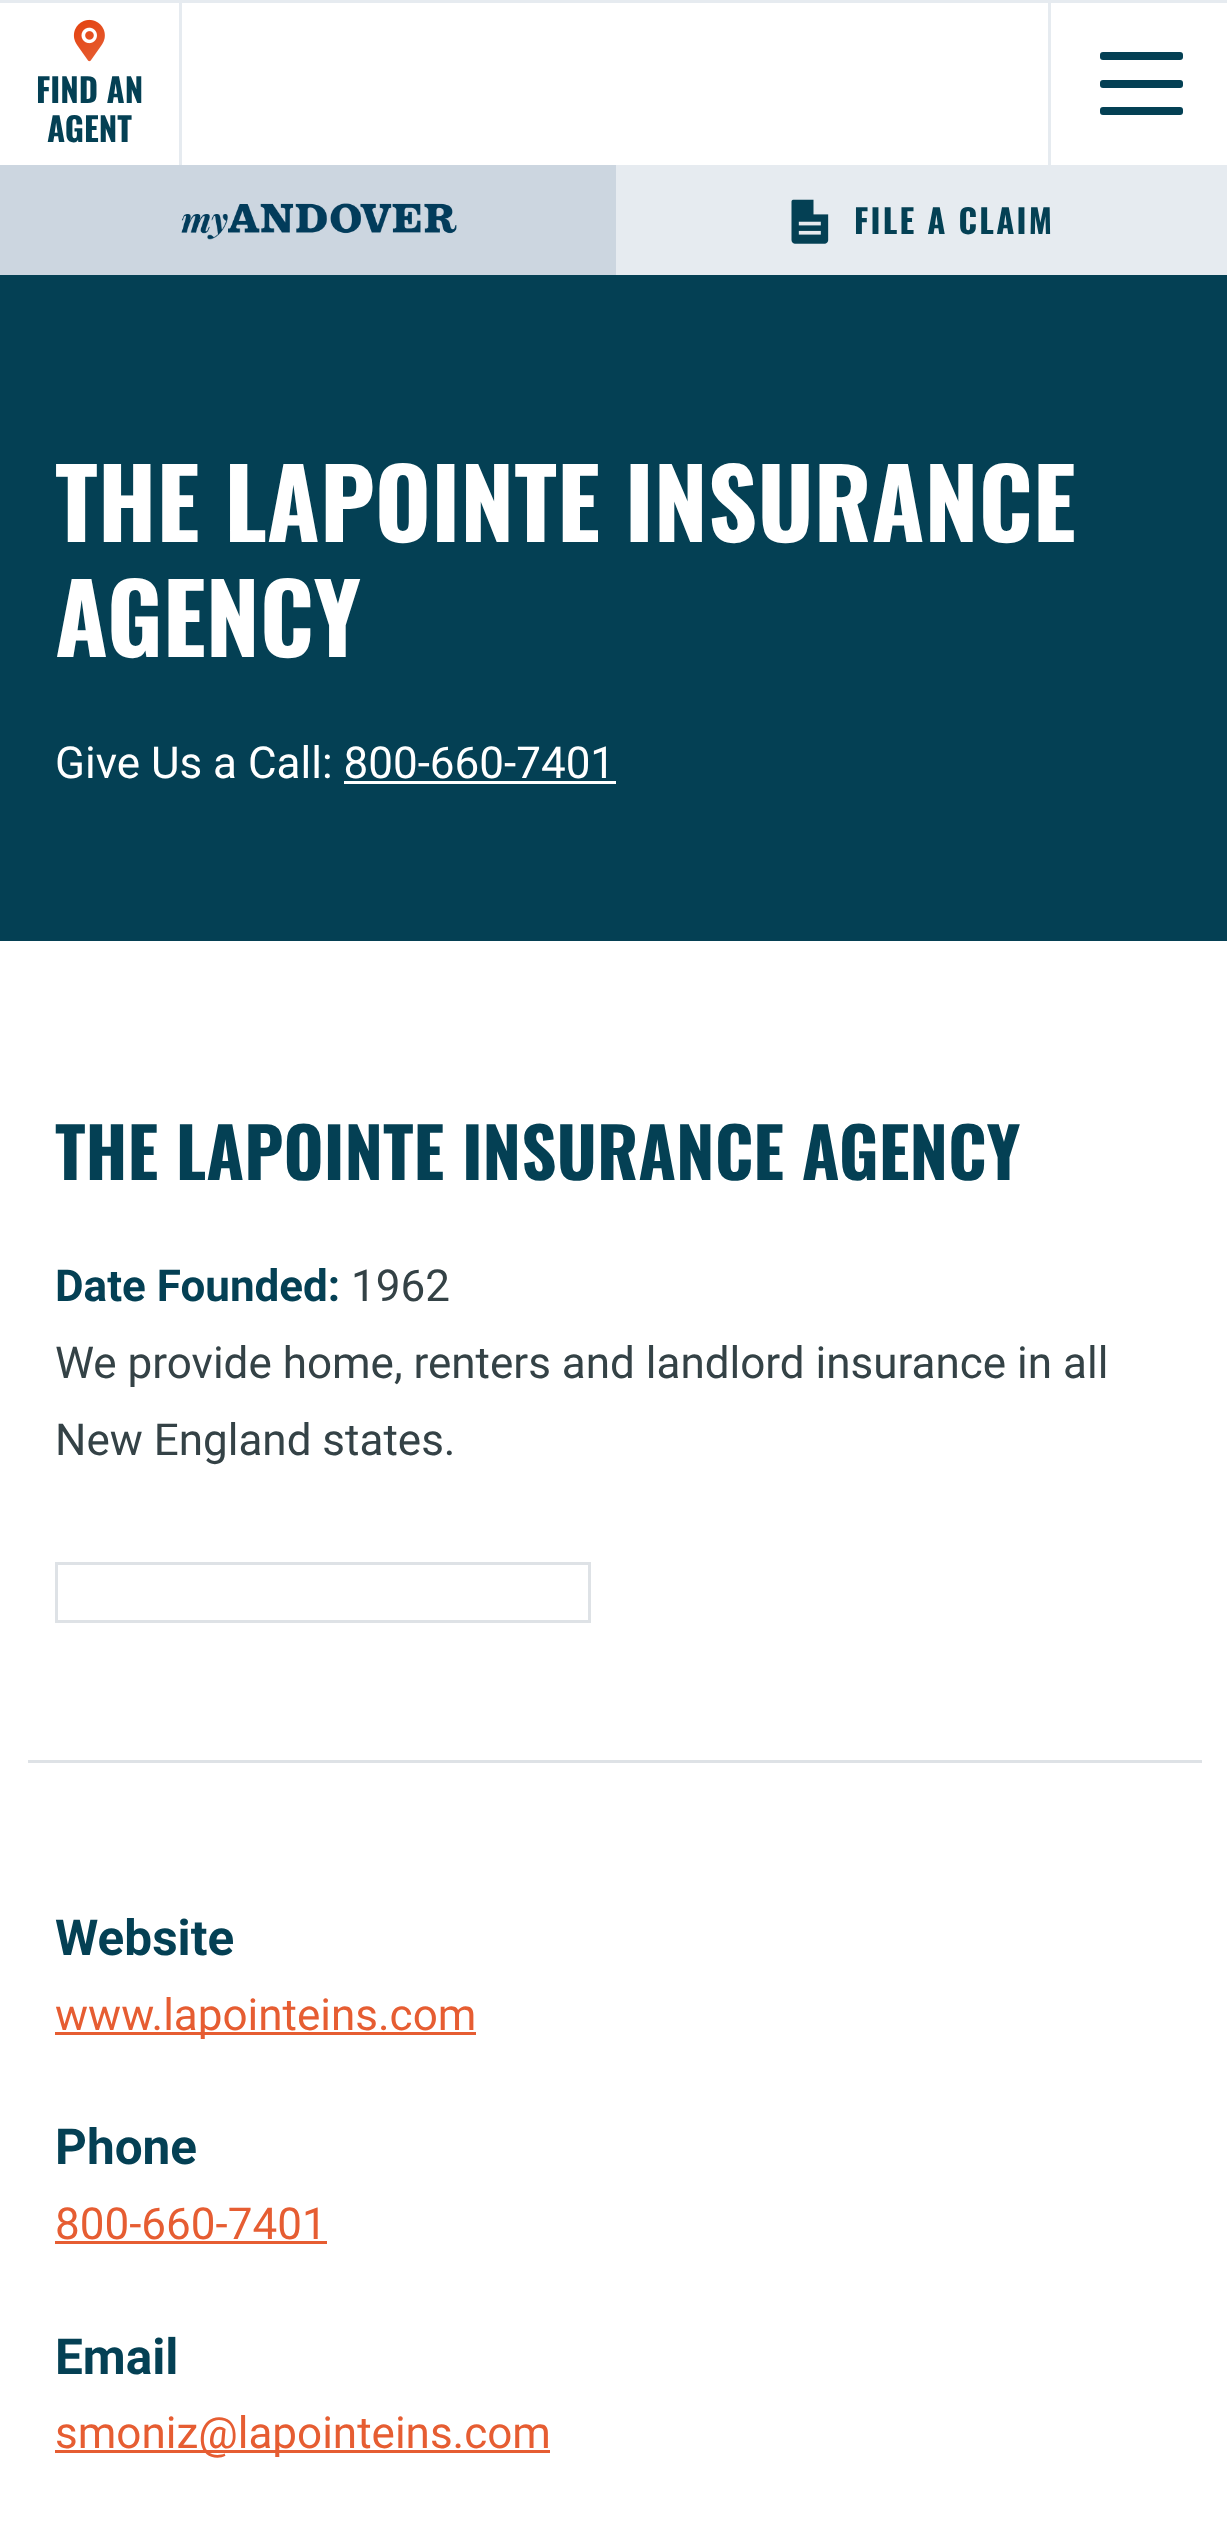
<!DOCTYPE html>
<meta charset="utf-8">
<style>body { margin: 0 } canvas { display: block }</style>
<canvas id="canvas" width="1227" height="2541"></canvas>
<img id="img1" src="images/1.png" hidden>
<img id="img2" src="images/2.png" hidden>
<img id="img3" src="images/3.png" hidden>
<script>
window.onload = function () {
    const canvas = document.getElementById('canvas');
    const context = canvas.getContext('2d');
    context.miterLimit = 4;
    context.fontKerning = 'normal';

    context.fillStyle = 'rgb(255, 255, 255)';
    context.fillRect(0, 0, 1227, 2541);
    context.fillStyle = 'rgb(230, 235, 240)';
    context.fillRect(0, 0, 1227, 3);
    context.drawImage(document.getElementById('img1'), 73, 19, 32, 43);
    context.fillRect(1048, 3, 3, 162);
    context.fillRect(179, 3, 3, 162);
    context.fillStyle = 'rgb(4, 64, 84)';
    context.beginPath();
    context.roundRect(1100, 80, 83, 8, 3);
    context.fill();
    context.beginPath();
    context.roundRect(1100, 52, 83, 8, 3);
    context.fill();
    context.beginPath();
    context.roundRect(1100, 107, 83, 8, 3);
    context.fill();
    context.fillStyle = 'rgb(204, 214, 224)';
    context.fillRect(0, 165, 616, 110);
    context.drawImage(document.getElementById('img2'), 181, 203, 276, 37);
    context.fillStyle = 'rgb(230, 235, 240)';
    context.fillRect(616, 165, 611, 110);
    context.drawImage(document.getElementById('img3'), 791, 199, 38, 45);
    context.fillStyle = 'rgb(4, 64, 84)';
    context.fillRect(0, 275, 1227, 666);
    context.fillStyle = 'rgb(255, 255, 255)';
    context.fillRect(344, 781, 272, 3);
    context.strokeStyle = 'rgb(222, 226, 230)';
    context.lineWidth = 3;
    context.strokeRect(56.5, 1563.5, 533, 58);
    context.fillStyle = 'rgb(222, 226, 230)';
    context.fillRect(28, 1760, 1174, 3);
    context.fillStyle = 'rgb(230, 93, 50)';
    context.fillRect(55, 2032, 421, 3);
    context.fillRect(55, 2241, 272, 3);
    context.fillRect(55, 2450, 495, 3);
    context.font = 'bold 33px Oswald';
    context.fillStyle = 'rgb(4, 64, 84)';
    context.fillText('FIND AN', 36, 103);
    context.fillText('AGENT', 47, 142);
    context.letterSpacing = '2.25px';
    context.fillText('FILE A CLAIM', 854, 234);
    context.letterSpacing = '0px';
    context.font = 'bold 96.25px Oswald';
    context.fillStyle = 'rgb(255, 255, 255)';
    context.fillText('THE LAPOINTE INSURANCE', 55, 542);
    context.fillText('AGENCY', 55, 657);
    context.font = '44px Roboto';
    context.fillText('Give Us a Call: 800-660-7401', 55, 778);
    context.font = 'bold 68.75px Oswald';
    context.fillStyle = 'rgb(4, 64, 84)';
    context.fillText('THE LAPOINTE INSURANCE AGENCY', 55, 1180);
    context.font = 'bold 44px Roboto';
    context.fillText('Date Founded:', 55, 1301);
    context.font = '44px Roboto';
    context.fillStyle = 'rgb(52, 66, 70)';
    context.fillText('1962', 351, 1301);
    context.fillText('We provide home, renters and landlord insurance in all', 55, 1378);
    context.fillText('New England states.', 55, 1455);
    context.font = 'bold 49.5px Roboto';
    context.fillStyle = 'rgb(4, 64, 84)';
    context.fillText('Website', 55, 1955);
    context.font = '44px Roboto';
    context.fillStyle = 'rgb(230, 93, 50)';
    context.fillText('www.lapointeins.com', 55, 2030);
    context.font = 'bold 49.5px Roboto';
    context.fillStyle = 'rgb(4, 64, 84)';
    context.fillText('Phone', 55, 2164);
    context.font = '44px Roboto';
    context.fillStyle = 'rgb(230, 93, 50)';
    context.fillText('800-660-7401', 55, 2239);
    context.font = 'bold 49.5px Roboto';
    context.fillStyle = 'rgb(4, 64, 84)';
    context.fillText('Email', 55, 2374);
    context.font = '44px Roboto';
    context.fillStyle = 'rgb(230, 93, 50)';
    context.fillText('smoniz@lapointeins.com', 55, 2448);
};
</script>
